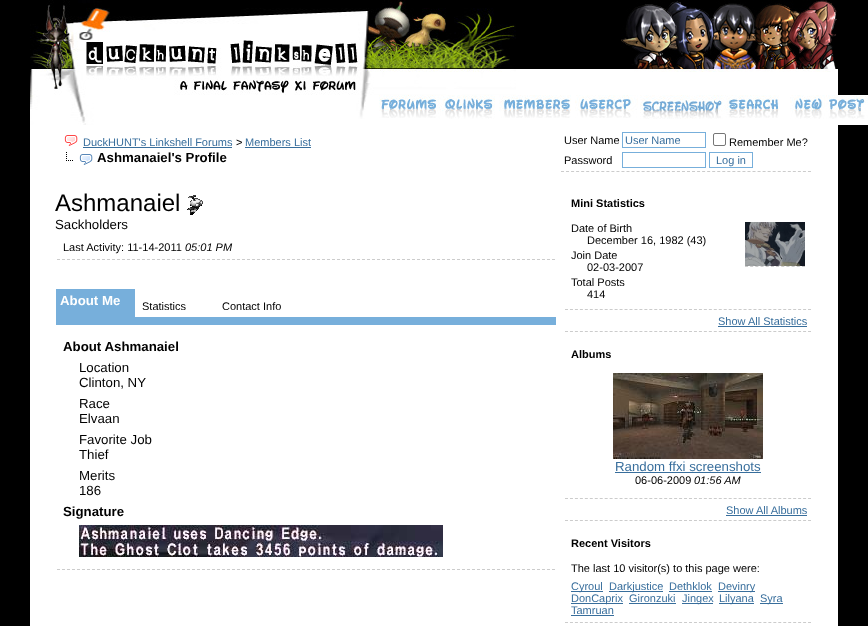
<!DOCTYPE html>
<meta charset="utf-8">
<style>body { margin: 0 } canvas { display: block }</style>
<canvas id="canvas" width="868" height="626"></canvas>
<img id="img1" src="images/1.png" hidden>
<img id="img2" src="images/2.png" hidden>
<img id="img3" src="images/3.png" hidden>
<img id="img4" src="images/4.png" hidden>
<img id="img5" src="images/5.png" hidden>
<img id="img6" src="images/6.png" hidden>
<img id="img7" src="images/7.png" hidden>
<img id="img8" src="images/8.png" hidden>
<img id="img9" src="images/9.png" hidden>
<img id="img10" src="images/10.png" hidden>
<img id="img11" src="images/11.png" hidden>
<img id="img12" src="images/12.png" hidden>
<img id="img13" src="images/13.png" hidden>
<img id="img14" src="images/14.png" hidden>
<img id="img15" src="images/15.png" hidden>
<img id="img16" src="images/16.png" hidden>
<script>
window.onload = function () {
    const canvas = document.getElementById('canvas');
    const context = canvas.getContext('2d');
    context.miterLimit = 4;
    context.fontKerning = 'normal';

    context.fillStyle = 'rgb(0, 0, 0)';
    context.fillRect(0, 0, 868, 626);
    context.fillStyle = 'rgb(255, 255, 255)';
    context.fillRect(516, 69, 322, 26);
    context.drawImage(document.getElementById('img1'), 30, 0, 486, 95);
    context.drawImage(document.getElementById('img2'), 621, 0, 216, 72);
    context.fillRect(367, 95, 501, 30);
    context.drawImage(document.getElementById('img3'), 30, 95, 337, 30);
    context.drawImage(document.getElementById('img4'), 379, 95, 60, 23);
    context.drawImage(document.getElementById('img5'), 439, 95, 56, 24);
    context.drawImage(document.getElementById('img6'), 499, 95, 72, 23);
    context.drawImage(document.getElementById('img7'), 575, 95, 63, 23);
    context.drawImage(document.getElementById('img8'), 640, 95, 83, 24);
    context.drawImage(document.getElementById('img9'), 723, 95, 56, 23);
    context.drawImage(document.getElementById('img10'), 790, 95, 78, 24);
    context.fillRect(30, 125, 808, 501);
    context.drawImage(document.getElementById('img11'), 64, 135, 14, 11);
    context.fillStyle = 'rgb(56, 110, 156)';
    context.fillRect(83, 147, 149, 1);
    context.fillRect(245, 147, 66, 1);
    context.drawImage(document.getElementById('img12'), 66, 152, 27, 13);
    context.beginPath();
    context.moveTo(561, 171.5);
    context.lineTo(811, 171.5);
    context.strokeStyle = 'rgb(204, 204, 204)';
    context.setLineDash([3, 2.04]);
    context.stroke();
    context.strokeStyle = 'rgb(119, 175, 219)';
    context.setLineDash([]);
    context.strokeRect(622.5, 132.5, 83, 15);
    context.beginPath();
    context.roundRect(713.5, 133.5, 12, 12, 1.5);
    context.strokeStyle = 'rgb(118, 118, 118)';
    context.stroke();
    context.strokeStyle = 'rgb(119, 175, 219)';
    context.strokeRect(622.5, 152.5, 83, 15);
    context.strokeRect(709.5, 152.5, 43, 15);
    context.drawImage(document.getElementById('img13'), 187, 195, 16, 20);
    context.beginPath();
    context.moveTo(57, 259.5);
    context.lineTo(555, 259.5);
    context.strokeStyle = 'rgb(204, 204, 204)';
    context.setLineDash([3, 2]);
    context.stroke();
    context.fillStyle = 'rgb(119, 175, 219)';
    context.fillRect(56, 289, 79, 28);
    context.fillRect(56, 317, 500, 8);
    context.beginPath();
    context.moveTo(57, 569.5);
    context.lineTo(555, 569.5);
    context.stroke();
    context.drawImage(document.getElementById('img14'), 79, 525, 364, 32);
    context.beginPath();
    context.moveTo(565, 309.5);
    context.lineTo(811, 309.5);
    context.setLineDash([3, 1.96]);
    context.stroke();
    context.drawImage(document.getElementById('img15'), 745, 222, 60, 44);
    context.beginPath();
    context.moveTo(745, 266.5);
    context.lineTo(805, 266.5);
    context.setLineDash([3, 2.18]);
    context.stroke();
    context.beginPath();
    context.moveTo(565, 331.5);
    context.lineTo(811, 331.5);
    context.setLineDash([3, 1.96]);
    context.stroke();
    context.fillStyle = 'rgb(56, 110, 156)';
    context.fillRect(718, 326, 89, 1);
    context.beginPath();
    context.moveTo(565, 498.5);
    context.lineTo(811, 498.5);
    context.stroke();
    context.drawImage(document.getElementById('img16'), 613, 373, 150, 86);
    context.fillRect(615, 472, 146, 1);
    context.beginPath();
    context.moveTo(565, 520.5);
    context.lineTo(811, 520.5);
    context.stroke();
    context.fillRect(726, 515, 81, 1);
    context.beginPath();
    context.moveTo(565, 622.5);
    context.lineTo(811, 622.5);
    context.stroke();
    context.fillRect(571, 591, 32, 1);
    context.fillRect(609, 591, 54, 1);
    context.fillRect(669, 591, 43, 1);
    context.fillRect(718, 591, 37, 1);
    context.fillRect(571, 603, 52, 1);
    context.fillRect(629, 603, 47, 1);
    context.fillRect(682, 603, 31, 1);
    context.fillRect(719, 603, 35, 1);
    context.fillRect(760, 603, 23, 1);
    context.fillRect(571, 615, 43, 1);
    context.font = '11px Liberation Sans';
    context.fillText('DuckHUNT\'s Linkshell Forums', 83, 146);
    context.fillStyle = 'rgb(0, 0, 0)';
    context.fillText('>', 236, 146);
    context.fillStyle = 'rgb(56, 110, 156)';
    context.fillText('Members List', 245, 146);
    context.font = 'bold 13.25px Liberation Sans';
    context.fillStyle = 'rgb(0, 0, 0)';
    context.fillText('Ashmanaiel\'s Profile', 97, 162);
    context.font = '11px Liberation Sans';
    context.fillText('User Name', 564, 144);
    context.fillStyle = 'rgb(56, 110, 156)';
    context.fillText('User Name', 625, 144);
    context.fillStyle = 'rgb(0, 0, 0)';
    context.fillText('Remember Me?', 729, 146);
    context.fillText('Password', 564, 164);
    context.fillStyle = 'rgb(56, 110, 156)';
    context.fillText('Log in', 716, 164);
    context.font = '24px Liberation Sans';
    context.fillStyle = 'rgb(0, 0, 0)';
    context.fillText('Ashmanaiel', 55, 211);
    context.font = '13.25px Liberation Sans';
    context.fillText('Sackholders', 55, 229);
    context.font = '11px Liberation Sans';
    context.fillText('Last Activity: 11-14-2011', 63, 251);
    context.font = 'italic 11px Liberation Sans';
    context.fillText('05:01 PM', 185, 251);
    context.font = 'bold 13.25px Liberation Sans';
    context.fillStyle = 'rgb(255, 255, 255)';
    context.fillText('About Me', 60, 305);
    context.font = '11px Liberation Sans';
    context.fillStyle = 'rgb(0, 0, 0)';
    context.fillText('Statistics', 142, 310);
    context.fillText('Contact Info', 222, 310);
    context.font = 'bold 13.25px Liberation Sans';
    context.fillText('About Ashmanaiel', 63, 351);
    context.font = '13.25px Liberation Sans';
    context.fillText('Location', 79, 372);
    context.fillText('Clinton, NY', 79, 387);
    context.fillText('Race', 79, 408);
    context.fillText('Elvaan', 79, 423);
    context.fillText('Favorite Job', 79, 444);
    context.fillText('Thief', 79, 459);
    context.fillText('Merits', 79, 480);
    context.fillText('186', 79, 495);
    context.font = 'bold 13.25px Liberation Sans';
    context.fillText('Signature', 63, 516);
    context.font = 'bold 11px Liberation Sans';
    context.fillText('Mini Statistics', 571, 207);
    context.font = '11px Liberation Sans';
    context.fillText('Date of Birth', 571, 232);
    context.fillText('December 16, 1982 (43)', 587, 244);
    context.fillText('Join Date', 571, 259);
    context.fillText('02-03-2007', 587, 271);
    context.fillText('Total Posts', 571, 286);
    context.fillText('414', 587, 298);
    context.fillStyle = 'rgb(56, 110, 156)';
    context.fillText('Show All Statistics', 718, 325);
    context.font = 'bold 11px Liberation Sans';
    context.fillStyle = 'rgb(0, 0, 0)';
    context.fillText('Albums', 571, 358);
    context.font = '13.25px Liberation Sans';
    context.fillStyle = 'rgb(56, 110, 156)';
    context.fillText('Random ffxi screenshots', 615, 471);
    context.font = '11px Liberation Sans';
    context.fillStyle = 'rgb(0, 0, 0)';
    context.fillText('06-06-2009', 635, 484);
    context.font = 'italic 11px Liberation Sans';
    context.fillText('01:56 AM', 694, 484);
    context.font = '11px Liberation Sans';
    context.fillStyle = 'rgb(56, 110, 156)';
    context.fillText('Show All Albums', 726, 514);
    context.font = 'bold 11px Liberation Sans';
    context.fillStyle = 'rgb(0, 0, 0)';
    context.fillText('Recent Visitors', 571, 547);
    context.font = '11px Liberation Sans';
    context.fillText('The last 10 visitor(s) to this page were:', 571, 572);
    context.fillStyle = 'rgb(56, 110, 156)';
    context.fillText('Cyroul', 571, 590);
    context.fillText('Darkjustice', 609, 590);
    context.fillText('Dethklok', 669, 590);
    context.fillText('Devinry', 718, 590);
    context.fillText('DonCaprix', 571, 602);
    context.fillText('Gironzuki', 629, 602);
    context.fillText('Jingex', 682, 602);
    context.fillText('Lilyana', 719, 602);
    context.fillText('Syra', 760, 602);
    context.fillText('Tamruan', 571, 614);
};
</script>
